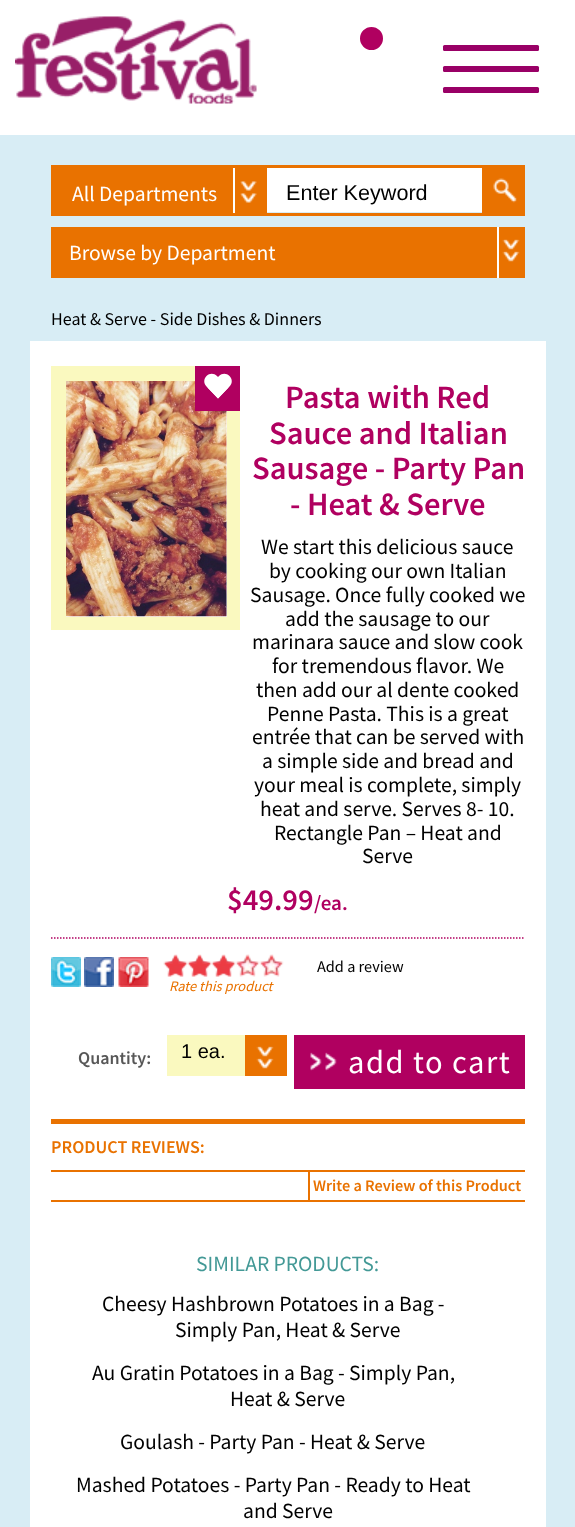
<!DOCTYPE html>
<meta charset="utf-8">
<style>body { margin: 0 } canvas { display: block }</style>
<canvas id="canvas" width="575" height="1527"></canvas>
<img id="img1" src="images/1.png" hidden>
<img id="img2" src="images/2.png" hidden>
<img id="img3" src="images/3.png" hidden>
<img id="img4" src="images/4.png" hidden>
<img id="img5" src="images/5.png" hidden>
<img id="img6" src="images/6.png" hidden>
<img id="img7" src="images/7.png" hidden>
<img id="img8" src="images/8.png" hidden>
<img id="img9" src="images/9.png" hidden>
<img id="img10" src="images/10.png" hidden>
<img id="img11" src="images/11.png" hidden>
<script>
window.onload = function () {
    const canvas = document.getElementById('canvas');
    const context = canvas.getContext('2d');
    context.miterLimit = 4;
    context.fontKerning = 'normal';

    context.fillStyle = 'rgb(255, 255, 255)';
    context.fillRect(0, 0, 575, 1527);
    context.drawImage(document.getElementById('img1'), 15, 16, 242, 88);
    context.fillStyle = 'rgb(176, 0, 96)';
    context.beginPath();
    context.arc(371.5, 38.5, 13, 0, 2 * Math.PI);
    context.fill();
    context.strokeStyle = 'rgb(255, 255, 255)';
    context.lineWidth = 3;
    context.stroke();
    context.fillStyle = 'rgb(153, 0, 102)';
    context.beginPath();
    context.roundRect(443, 45, 96, 6, 1.5);
    context.fill();
    context.beginPath();
    context.roundRect(443, 66, 96, 6, 1.5);
    context.fill();
    context.beginPath();
    context.roundRect(443, 87, 96, 6, 1.5);
    context.fill();
    context.fillStyle = 'rgb(216, 237, 245)';
    context.fillRect(0, 135, 575, 1392);
    context.fillStyle = 'rgb(233, 114, 0)';
    context.fillRect(51, 165, 213, 51);
    context.drawImage(document.getElementById('img2'), 240, 181, 17, 22);
    context.fillStyle = 'rgb(255, 255, 255)';
    context.fillRect(233, 168, 2, 45);
    context.strokeStyle = 'rgb(233, 114, 0)';
    context.strokeRect(265.5, 166.5, 218, 48);
    context.fillRect(267, 168, 215, 44);
    context.fillStyle = 'rgb(233, 114, 0)';
    context.fillRect(485, 165, 40, 51);
    context.drawImage(document.getElementById('img3'), 493, 178, 24, 25);
    context.fillRect(51, 227, 474, 51);
    context.drawImage(document.getElementById('img4'), 502, 239, 18, 23);
    context.fillStyle = 'rgb(255, 255, 255)';
    context.fillRect(497, 227, 2, 51);
    context.fillRect(30, 341, 516, 1186);
    context.fillStyle = 'rgb(250, 249, 191)';
    context.fillRect(51, 366, 189, 264);
    context.fillStyle = 'rgb(255, 255, 255)';
    context.fillRect(66, 411, 161, 206);
    context.drawImage(document.getElementById('img5'), 66, 381, 161, 236);
    context.fillStyle = 'rgb(176, 0, 96)';
    context.fillRect(195, 366, 45, 45);
    context.fillStyle = 'rgb(255, 255, 255)';
    context.beginPath();
    context.moveTo(206.5, 376);
    context.bezierCurveTo(209.5, 373, 214, 373, 217, 376);
    context.lineTo(228.5, 387.5);
    context.lineTo(218, 398.5);
    context.lineTo(206.5, 386.5);
    context.bezierCurveTo(203.5, 383.5, 203.5, 379, 206.5, 376);
    context.closePath();
    context.fill();
    context.beginPath();
    context.moveTo(229.5, 376);
    context.bezierCurveTo(232.5, 379, 232.5, 383.5, 229.5, 386.5);
    context.lineTo(218, 398.5);
    context.lineTo(207.5, 387.5);
    context.lineTo(219, 376);
    context.bezierCurveTo(222, 373, 226.5, 373, 229.5, 376);
    context.closePath();
    context.fill();
    context.beginPath();
    context.moveTo(51, 938);
    context.lineTo(525, 938);
    context.strokeStyle = 'rgb(176, 0, 96)';
    context.lineWidth = 1.5;
    context.setLineDash([1.5, 1.5]);
    context.stroke();
    context.drawImage(document.getElementById('img6'), 51, 957, 30, 30);
    context.drawImage(document.getElementById('img7'), 84, 957, 30, 30);
    context.drawImage(document.getElementById('img8'), 118, 957, 31, 30);
    context.drawImage(document.getElementById('img9'), 163, 954, 121, 23);
    context.drawImage(document.getElementById('img10'), 163, 955, 73, 22);
    context.fillStyle = 'rgb(250, 249, 191)';
    context.fillRect(167, 1035, 78, 41);
    context.fillStyle = 'rgb(233, 114, 0)';
    context.fillRect(245, 1035, 42, 41);
    context.drawImage(document.getElementById('img4'), 256, 1046, 18, 23);
    context.fillStyle = 'rgb(176, 0, 96)';
    context.fillRect(294, 1035, 231, 54);
    context.drawImage(document.getElementById('img11'), 310, 1052, 27, 19);
    context.fillStyle = 'rgb(233, 114, 0)';
    context.fillRect(51, 1119, 474, 5);
    context.fillRect(51, 1200, 474, 2);
    context.fillRect(51, 1170, 474, 2);
    context.fillRect(308, 1172, 2, 28);
    context.font = '21.6px Source Sans Pro';
    context.fillStyle = 'rgb(255, 255, 255)';
    context.fillText('All Departments', 72, 201);
    context.font = '21.6px Liberation Sans';
    context.fillStyle = 'rgb(0, 0, 0)';
    context.fillText('Enter Keyword', 286, 200);
    context.font = '21.6px Source Sans Pro';
    context.fillStyle = 'rgb(255, 255, 255)';
    context.fillText('Browse by Department', 69, 260);
    context.font = '18px Source Sans Pro';
    context.fillStyle = 'rgb(0, 0, 0)';
    context.fillText('Heat & Serve - Side Dishes & Dinners', 51, 325);
    context.font = '600 32.5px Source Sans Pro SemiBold';
    context.fillStyle = 'rgb(176, 0, 96)';
    context.fillText('Pasta with Red', 285, 408);
    context.fillText('Sauce and Italian', 269, 444);
    context.fillText('Sausage - Party Pan', 252, 479);
    context.fillText('- Heat & Serve', 290, 515);
    context.font = '21.6px Source Sans Pro';
    context.fillStyle = 'rgb(0, 0, 0)';
    context.fillText('We start this delicious sauce', 261, 554);
    context.fillText('by cooking our own Italian', 269, 578);
    context.fillText('Sausage. Once fully cooked we', 250, 602);
    context.fillText('add the sausage to our', 285, 626);
    context.fillText('marinara sauce and slow cook', 252, 649);
    context.fillText('for tremendous flavor. We', 272, 673);
    context.fillText('then add our al dente cooked', 256, 697);
    context.fillText('Penne Pasta. This is a great', 267, 721);
    context.fillText('entrée that can be served with', 252, 744);
    context.fillText('a simple side and bread and', 262, 768);
    context.fillText('your meal is complete, simply', 254, 792);
    context.fillText('heat and serve. Serves 8- 10.', 260, 816);
    context.fillText('Rectangle Pan – Heat and', 274, 840);
    context.fillText('Serve', 362, 863);
    context.font = '600 30.5px Source Sans Pro SemiBold';
    context.fillStyle = 'rgb(176, 0, 96)';
    context.fillText('$49.99', 227, 910);
    context.font = '600 21px Source Sans Pro SemiBold';
    context.fillText('/ea.', 314, 910);
    context.font = '16.25px Source Sans Pro';
    context.fillStyle = 'rgb(0, 0, 0)';
    context.fillText('Add a review', 317, 972);
    context.font = 'italic 14.5px Source Sans Pro';
    context.fillStyle = 'rgb(233, 114, 0)';
    context.fillText('Rate this product', 169, 991);
    context.font = '600 18px Source Sans Pro SemiBold';
    context.fillStyle = 'rgb(87, 87, 87)';
    context.fillText('Quantity:', 78, 1064);
    context.font = '20px Liberation Sans';
    context.fillStyle = 'rgb(0, 0, 0)';
    context.fillText('1 ea.', 181, 1058);
    context.letterSpacing = '1.5px';
    context.font = '32.5px Source Sans Pro';
    context.fillStyle = 'rgb(255, 255, 255)';
    context.fillText('add to cart', 348, 1073);
    context.letterSpacing = '0px';
    context.font = '600 18px Source Sans Pro SemiBold';
    context.fillStyle = 'rgb(233, 114, 0)';
    context.fillText('PRODUCT REVIEWS:', 51, 1153);
    context.font = '600 16.25px Source Sans Pro SemiBold';
    context.fillText('Write a Review of this Product', 313, 1191);
    context.font = '21.6px Source Sans Pro';
    context.fillStyle = 'rgb(67, 153, 150)';
    context.fillText('SIMILAR PRODUCTS:', 196, 1271);
    context.fillStyle = 'rgb(0, 0, 0)';
    context.fillText('Cheesy Hashbrown Potatoes in a Bag -', 102, 1311);
    context.fillText('Simply Pan, Heat & Serve', 175, 1337);
    context.fillText('Au Gratin Potatoes in a Bag - Simply Pan,', 92, 1380);
    context.fillText('Heat & Serve', 230, 1406);
    context.fillText('Goulash - Party Pan - Heat & Serve', 120, 1449);
    context.fillText('Mashed Potatoes - Party Pan - Ready to Heat', 76, 1492);
    context.fillText('and Serve', 243, 1518);
};
</script>
